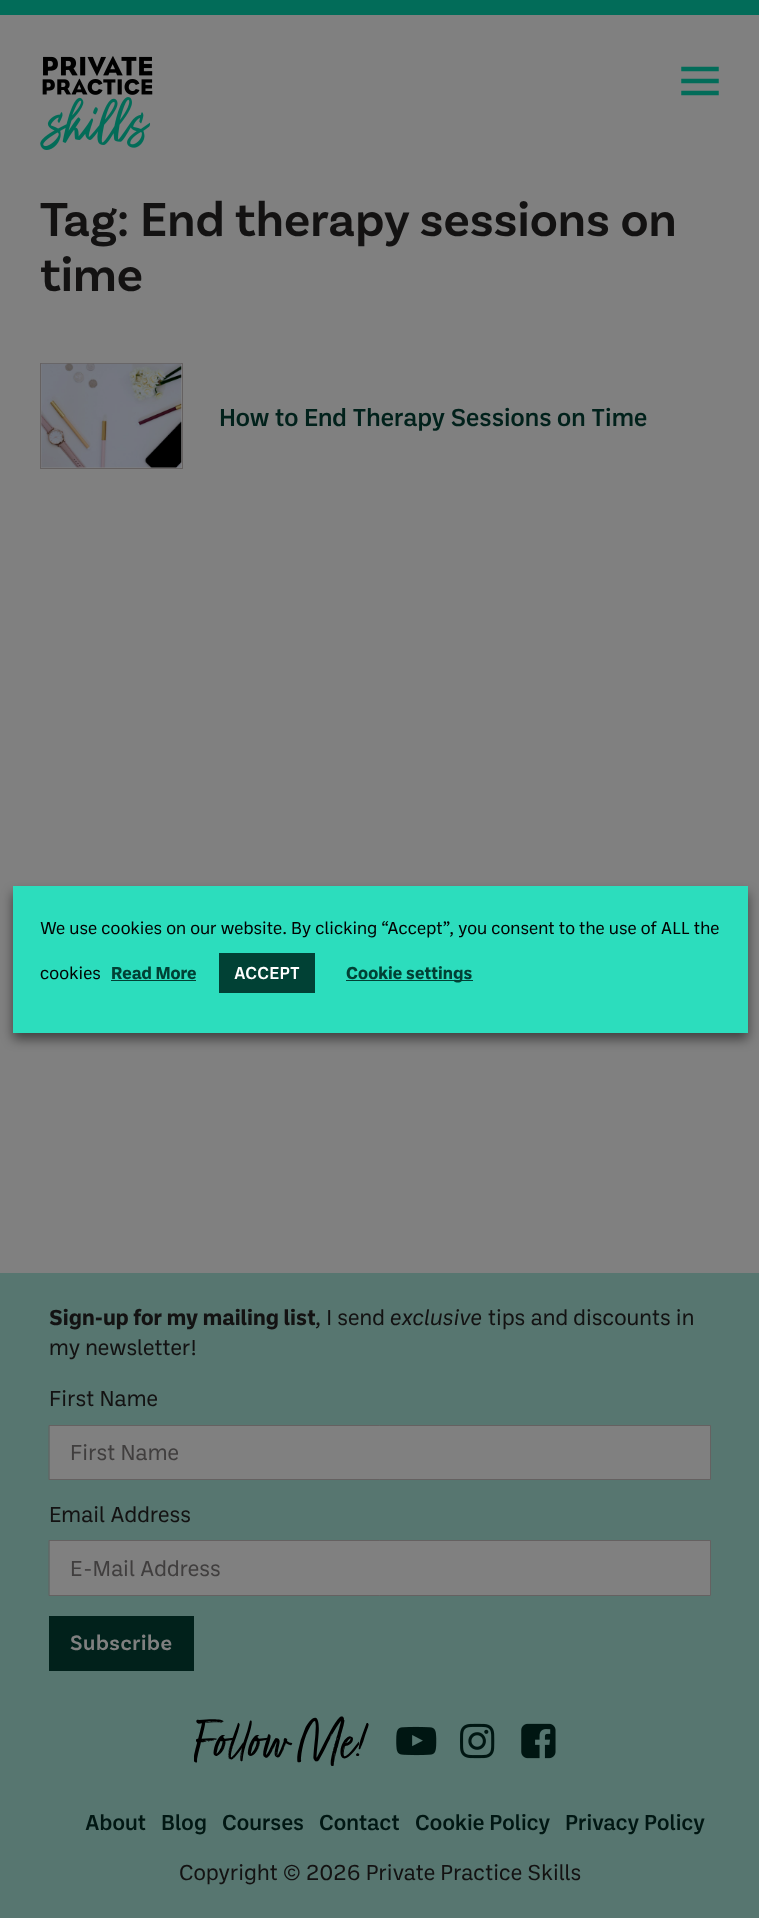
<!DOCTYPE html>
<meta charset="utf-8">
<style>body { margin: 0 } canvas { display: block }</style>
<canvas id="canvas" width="759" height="1918"></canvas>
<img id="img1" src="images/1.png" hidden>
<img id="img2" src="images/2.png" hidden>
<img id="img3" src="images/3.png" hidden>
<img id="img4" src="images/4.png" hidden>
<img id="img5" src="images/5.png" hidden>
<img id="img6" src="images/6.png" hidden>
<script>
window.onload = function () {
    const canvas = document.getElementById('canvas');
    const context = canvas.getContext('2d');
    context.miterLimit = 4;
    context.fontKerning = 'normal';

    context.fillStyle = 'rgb(128, 128, 128)';
    context.fillRect(0, 0, 759, 1918);
    context.fillStyle = 'rgb(2, 108, 89)';
    context.fillRect(0, 0, 759, 15);
    context.drawImage(document.getElementById('img1'), 40, 56, 113, 94);
    context.beginPath();
    context.moveTo(683.5, 69);
    context.lineTo(716.5, 69);
    context.moveTo(683.5, 81);
    context.lineTo(716.5, 81);
    context.moveTo(683.5, 93);
    context.lineTo(716.5, 93);
    context.strokeStyle = 'rgb(2, 108, 89)';
    context.lineWidth = 4.5;
    context.lineCap = 'square';
    context.stroke();
    context.strokeStyle = 'rgb(101, 97, 97)';
    context.lineWidth = 1;
    context.strokeRect(40.5, 363.5, 142, 105);
    context.drawImage(document.getElementById('img2'), 41, 363, 141, 105);
    context.fillStyle = 'rgb(87, 118, 112)';
    context.fillRect(0, 1273, 759, 645);
    context.fillStyle = 'rgb(128, 128, 128)';
    context.beginPath();
    context.rect(49.5, 1425.5, 661, 54);
    context.fill();
    context.stroke();
    context.beginPath();
    context.rect(49.5, 1540.5, 661, 55);
    context.fill();
    context.stroke();
    context.fillStyle = 'rgb(1, 33, 27)';
    context.fillRect(49, 1616, 145, 55);
    context.drawImage(document.getElementById('img3'), 194, 1716, 175, 50);
    context.drawImage(document.getElementById('img4'), 396, 1726, 41, 30);
    context.drawImage(document.getElementById('img5'), 460, 1723, 35, 36);
    context.drawImage(document.getElementById('img6'), 521, 1723, 35, 36);
    context.fillStyle = 'rgba(0, 0, 0, 0.5)';
    context.filter = 'blur(6px)';
    context.beginPath();
    context.rect(13, 893, 735, 146);
    context.fill();
    context.filter = 'none';
    context.fillStyle = 'rgb(44, 221, 189)';
    context.fillRect(13, 886, 735, 147);
    context.fillStyle = 'rgb(1, 65, 53)';
    context.fillRect(111, 980, 85, 1);
    context.fillRect(219, 953, 96, 40);
    context.fillRect(346, 980, 127, 1);
    context.font = '600 50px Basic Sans';
    context.fillStyle = 'rgb(19, 18, 18)';
    context.fillText('Tag: End therapy sessions on', 40, 236);
    context.fillText('time', 40, 291);
    context.font = '500 25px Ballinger';
    context.fillStyle = 'rgb(1, 33, 27)';
    context.fillText('How to End Therapy Sessions on Time', 219, 426);
    context.font = 'bold 22px Ballinger';
    context.fillStyle = 'rgb(19, 18, 18)';
    context.fillText('Sign-up for my mailing list', 49, 1325);
    context.font = '22px Ballinger';
    context.fillText(', I send', 315, 1325);
    context.font = 'italic 22px Ballinger';
    context.fillText('exclusive', 390, 1325);
    context.font = '22px Ballinger';
    context.fillText('tips and discounts in', 488, 1325);
    context.fillText('my newsletter!', 49, 1355);
    context.fillText('First Name', 49, 1406);
    context.fillStyle = 'rgb(64, 62, 62)';
    context.fillText('First Name', 70, 1460);
    context.fillStyle = 'rgb(19, 18, 18)';
    context.fillText('Email Address', 49, 1522);
    context.fillStyle = 'rgb(64, 62, 62)';
    context.fillText('E-Mail Address', 70, 1576);
    context.letterSpacing = '0.6px';
    context.font = '600 22px Basic Sans';
    context.fillStyle = 'rgb(128, 128, 128)';
    context.fillText('Subscribe', 70, 1650);
    context.letterSpacing = '0px';
    context.font = '500 22px Ballinger';
    context.fillStyle = 'rgb(1, 23, 19)';
    context.fillText('About', 85, 1830);
    context.fillText('Blog', 161, 1830);
    context.fillText('Courses', 222, 1830);
    context.fillText('Contact', 319, 1830);
    context.fillText('Cookie Policy', 415, 1830);
    context.fillText('Privacy Policy', 565, 1830);
    context.font = '22px Ballinger';
    context.fillStyle = 'rgb(19, 18, 18)';
    context.fillText('Copyright © 2026 Private Practice Skills', 179, 1880);
    context.font = '17.5px Ballinger';
    context.fillStyle = 'rgb(2, 2, 2)';
    context.fillText('We use cookies on our website. By clicking “Accept”, you consent to the use of ALL the', 40, 934);
    context.fillText('cookies', 40, 979);
    context.font = 'bold 17.5px Ballinger';
    context.fillStyle = 'rgb(1, 65, 53)';
    context.fillText('Read More', 111, 979);
    context.font = '500 17.5px Ballinger';
    context.fillStyle = 'rgb(255, 255, 255)';
    context.fillText('ACCEPT', 234, 979);
    context.font = 'bold 17.5px Ballinger';
    context.fillStyle = 'rgb(1, 65, 53)';
    context.fillText('Cookie settings', 346, 979);
};
</script>
